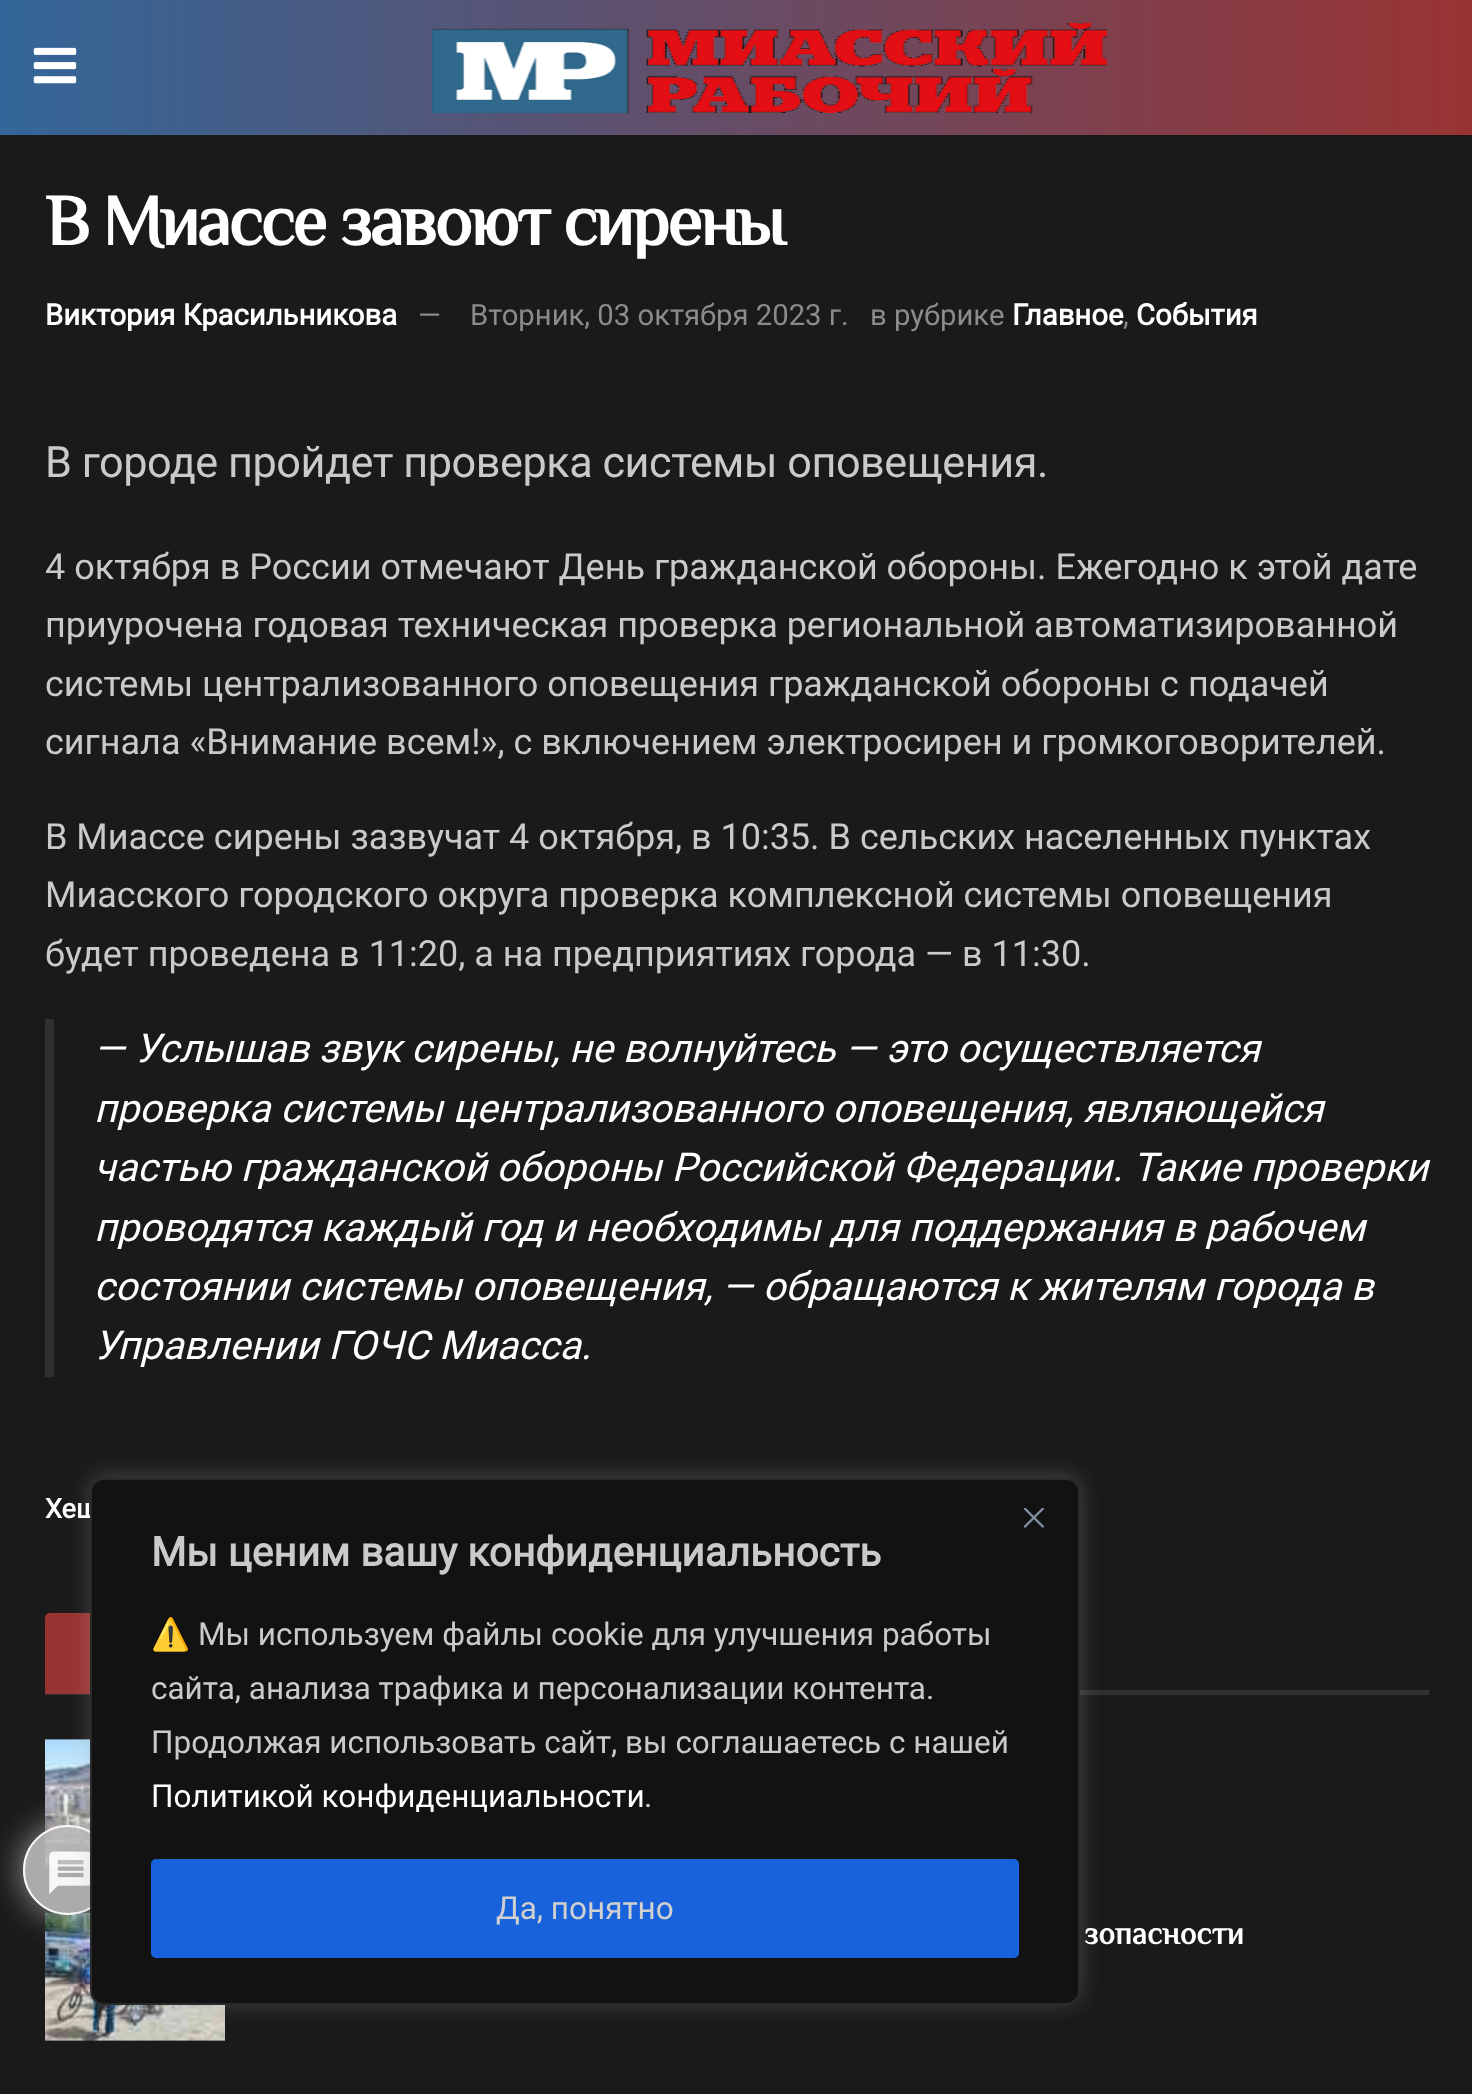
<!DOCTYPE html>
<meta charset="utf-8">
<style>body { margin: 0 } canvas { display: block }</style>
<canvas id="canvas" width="1472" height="2094"></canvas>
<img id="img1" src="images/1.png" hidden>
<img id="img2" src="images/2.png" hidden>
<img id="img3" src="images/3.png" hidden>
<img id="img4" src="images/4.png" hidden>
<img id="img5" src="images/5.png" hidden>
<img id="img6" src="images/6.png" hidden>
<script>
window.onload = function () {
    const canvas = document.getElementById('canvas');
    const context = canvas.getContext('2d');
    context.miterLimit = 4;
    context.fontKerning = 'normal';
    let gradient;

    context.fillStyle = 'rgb(26, 26, 26)';
    context.fillRect(0, 0, 1472, 2094);
    gradient = context.createLinearGradient(0, 68, 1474, 67);
    gradient.addColorStop(0, 'rgb(51, 102, 153)');
    gradient.addColorStop(1, 'rgb(153, 51, 51)');
    context.fillStyle = gradient;
    context.fillRect(0, 0, 1472, 135);
    context.drawImage(document.getElementById('img1'), 33, 47, 44, 37);
    context.drawImage(document.getElementById('img2'), 432, 23, 675, 90);
    context.fillStyle = 'rgb(48, 48, 48)';
    context.fillRect(45, 1019, 9, 358);
    context.fillRect(45, 1690, 1384, 5);
    context.fillStyle = 'rgb(153, 51, 51)';
    context.beginPath();
    context.roundRect(45, 1613, 360, 81, [5, 5, 0, 0]);
    context.fill();
    context.fillStyle = 'rgb(40, 40, 40)';
    context.fillRect(45, 1739, 45, 129);
    context.drawImage(document.getElementById('img3'), 45, 1739, 45, 129);
    context.fillRect(45, 2040, 180, 1);
    context.drawImage(document.getElementById('img4'), 45, 1912, 180, 129);
    context.save();
    context.beginPath();
    context.moveTo(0, 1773);
    context.lineTo(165, 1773);
    context.lineTo(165, 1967);
    context.lineTo(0, 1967);
    context.closePath();
    context.moveTo(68, 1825);
    context.bezierCurveTo(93, 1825, 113, 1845, 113, 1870);
    context.bezierCurveTo(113, 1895, 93, 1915, 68, 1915);
    context.bezierCurveTo(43, 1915, 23, 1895, 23, 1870);
    context.bezierCurveTo(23, 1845, 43, 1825, 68, 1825);
    context.closePath();
    context.clip('evenodd');
    context.fillStyle = 'rgba(170, 170, 170, 0.9)';
    context.filter = 'blur(17px)';
    context.beginPath();
    context.roundRect(23, 1825, 90, 90, 45);
    context.fill();
    context.filter = 'none';
    context.restore();
    context.fillStyle = 'rgba(187, 187, 187, 0.9)';
    context.beginPath();
    context.arc(68, 1870, 45, 0, 2 * Math.PI);
    context.fill();
    context.beginPath();
    context.arc(68, 1870, 44, 0, 2 * Math.PI);
    context.strokeStyle = 'rgba(255, 255, 255, 0.9)';
    context.lineWidth = 2;
    context.stroke();
    context.drawImage(document.getElementById('img5'), 49, 1851, 41, 43);
    context.fillStyle = 'rgba(172, 171, 171, 0.3)';
    context.filter = 'blur(11px)';
    context.beginPath();
    context.roundRect(90, 1476, 990, 527, 14);
    context.fill();
    context.filter = 'none';
    context.letterSpacing = '-2.9px';
    context.font = 'bold 72px Philosopher';
    context.fillStyle = 'rgb(255, 255, 255)';
    context.fillText('В Миассе завоют сирены', 45, 245);
    context.letterSpacing = '0px';
    context.font = 'bold 29.25px Roboto';
    context.fillText('Виктория Красильникова', 45, 325);
    context.font = '29.25px Roboto';
    context.fillStyle = 'rgb(139, 139, 139)';
    context.fillText('—', 418, 325);
    context.fillText('Вторник, 03 октября 2023 г.', 470, 325);
    context.fillText('в рубрике', 870, 325);
    context.font = 'bold 29.25px Roboto';
    context.fillStyle = 'rgb(255, 255, 255)';
    context.fillText('Главное', 1012, 325);
    context.font = '29.25px Roboto';
    context.fillStyle = 'rgb(139, 139, 139)';
    context.fillText(',', 1123, 325);
    context.font = 'bold 29.25px Roboto';
    context.fillStyle = 'rgb(255, 255, 255)';
    context.fillText('События', 1136, 325);
    context.letterSpacing = '-0.45px';
    context.font = '43.2px Roboto';
    context.fillStyle = 'rgb(202, 202, 202)';
    context.fillText('В городе пройдет проверка системы оповещения.', 45, 477);
    context.letterSpacing = '0px';
    context.font = '36px Roboto';
    context.fillText('4 октября в России отмечают День гражданской обороны. Ежегодно к этой дате', 45, 579);
    context.fillText('приурочена годовая техническая проверка региональной автоматизированной', 45, 637);
    context.fillText('системы централизованного оповещения гражданской обороны с подачей', 45, 696);
    context.fillText('сигнала «Внимание всем!», с включением электросирен и громкоговорителей.', 45, 754);
    context.fillText('В Миассе сирены зазвучат 4 октября, в 10:35. В сельских населенных пунктах', 45, 849);
    context.fillText('Миасского городского округа проверка комплексной системы оповещения', 45, 907);
    context.fillText('будет проведена в 11:20, а на предприятиях города — в 11:30.', 45, 966);
    context.font = 'italic 39.6px Roboto';
    context.fillStyle = 'rgb(255, 255, 255)';
    context.fillText('— Услышав звук сирены, не волнуйтесь — это осуществляется', 94, 1062);
    context.fillText('проверка системы централизованного оповещения, являющейся', 94, 1122);
    context.fillText('частью гражданской обороны Российской Федерации. Такие проверки', 94, 1181);
    context.fillText('проводятся каждый год и необходимы для поддержания в рабочем', 94, 1241);
    context.fillText('состоянии системы оповещения, — обращаются к жителям города в', 94, 1300);
    context.fillText('Управлении ГОЧС Миасса.', 94, 1359);
    context.font = 'bold 27px Roboto';
    context.fillText('Хеш', 45, 1518);
    context.font = 'bold 31.5px Philosopher';
    context.fillText('зопасности', 1084, 1944);
    context.fillStyle = 'rgb(18, 18, 18)';
    context.beginPath();
    context.roundRect(91, 1479, 988, 525, 13);
    context.fill();
    context.strokeStyle = 'rgb(42, 42, 42)';
    context.stroke();
    context.drawImage(document.getElementById('img6'), 1024, 1508, 20, 20);
    context.font = 'bold 40.5px Roboto';
    context.fillStyle = 'rgb(202, 202, 202)';
    context.fillText('Мы ценим вашу конфиденциальность', 151, 1566);
    context.font = '31.5px Noto Color Emoji';
    context.fillText('⚠️', 151, 1645);
    context.font = '31.5px Roboto';
    context.fillText('Мы используем файлы cookie для улучшения работы', 198, 1645);
    context.fillText('сайта, анализа трафика и персонализации контента.', 151, 1699);
    context.fillText('Продолжая использовать сайт, вы соглашаетесь с нашей', 151, 1753);
    context.fillStyle = 'rgb(255, 255, 255)';
    context.fillText('Политикой конфиденциальности', 151, 1807);
    context.fillStyle = 'rgb(202, 202, 202)';
    context.fillText('.', 644, 1807);
    context.fillStyle = 'rgb(24, 99, 220)';
    context.beginPath();
    context.roundRect(153.5, 1861.5, 863, 94, 2.5);
    context.fill();
    context.strokeStyle = 'rgb(24, 99, 220)';
    context.lineWidth = 5;
    context.stroke();
    context.fillStyle = 'rgb(208, 208, 208)';
    context.fillText('Да, понятно', 496, 1919);
};
</script>
